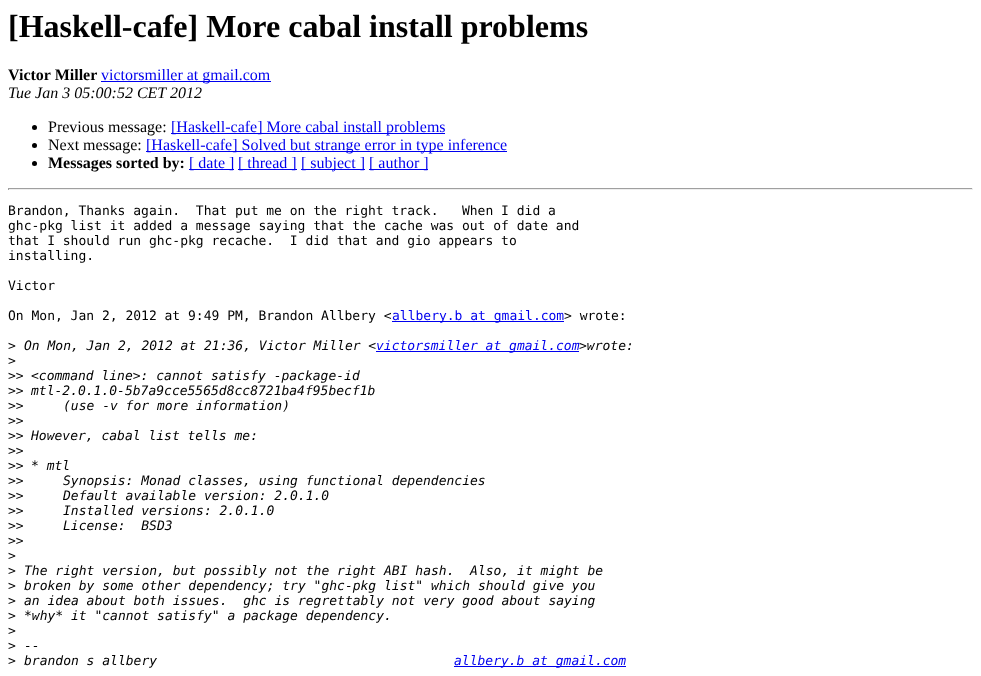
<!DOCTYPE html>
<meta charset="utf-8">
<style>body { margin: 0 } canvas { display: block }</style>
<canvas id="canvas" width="981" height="676"></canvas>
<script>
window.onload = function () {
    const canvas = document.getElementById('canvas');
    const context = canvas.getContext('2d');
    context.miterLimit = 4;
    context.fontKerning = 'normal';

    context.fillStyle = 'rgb(255, 255, 255)';
    context.fillRect(0, 0, 981, 676);
    context.fillStyle = 'rgb(0, 0, 238)';
    context.fillRect(101, 81, 170, 1);
    context.fillStyle = 'rgb(0, 0, 0)';
    context.beginPath();
    context.arc(34.5, 127.5, 2.5, 0, 2 * Math.PI);
    context.fill();
    context.fillStyle = 'rgb(0, 0, 238)';
    context.fillRect(171, 133, 274, 1);
    context.fillStyle = 'rgb(0, 0, 0)';
    context.beginPath();
    context.arc(34.5, 145.5, 2.5, 0, 2 * Math.PI);
    context.fill();
    context.fillStyle = 'rgb(0, 0, 238)';
    context.fillRect(146, 151, 361, 1);
    context.fillStyle = 'rgb(0, 0, 0)';
    context.beginPath();
    context.arc(34.5, 163.5, 2.5, 0, 2 * Math.PI);
    context.fill();
    context.fillStyle = 'rgb(0, 0, 238)';
    context.fillRect(189, 169, 45, 1);
    context.fillRect(238, 169, 59, 1);
    context.fillRect(301, 169, 64, 1);
    context.fillRect(369, 169, 59, 1);
    context.fillStyle = 'rgb(159, 159, 159)';
    context.fillRect(8, 188, 965, 1);
    context.fillStyle = 'rgb(238, 238, 238)';
    context.fillRect(972, 188, 1, 2);
    context.fillRect(8, 189, 965, 1);
    context.fillStyle = 'rgb(159, 159, 159)';
    context.fillRect(8, 188, 1, 2);
    context.fillStyle = 'rgb(0, 0, 238)';
    context.fillRect(392, 321, 172, 1);
    context.fillRect(376, 351, 203, 1);
    context.fillRect(454, 666, 172, 1);
    context.font = 'bold 32px Liberation Serif';
    context.fillStyle = 'rgb(0, 0, 0)';
    context.fillText('[Haskell-cafe] More cabal install problems', 8, 37);
    context.font = 'bold 16px Liberation Serif';
    context.fillText('Victor Miller', 8, 80);
    context.font = '16px Liberation Serif';
    context.fillStyle = 'rgb(0, 0, 238)';
    context.fillText('victorsmiller at gmail.com', 101, 80);
    context.font = 'italic 16px Liberation Serif';
    context.fillStyle = 'rgb(0, 0, 0)';
    context.fillText('Tue Jan 3 05:00:52 CET 2012', 8, 98);
    context.font = '16px Liberation Serif';
    context.fillText('Previous message:', 48, 132);
    context.fillStyle = 'rgb(0, 0, 238)';
    context.fillText('[Haskell-cafe] More cabal install problems', 171, 132);
    context.fillStyle = 'rgb(0, 0, 0)';
    context.fillText('Next message:', 48, 150);
    context.fillStyle = 'rgb(0, 0, 238)';
    context.fillText('[Haskell-cafe] Solved but strange error in type inference', 146, 150);
    context.font = 'bold 16px Liberation Serif';
    context.fillStyle = 'rgb(0, 0, 0)';
    context.fillText('Messages sorted by:', 48, 168);
    context.font = '16px Liberation Serif';
    context.fillStyle = 'rgb(0, 0, 238)';
    context.fillText('[ date ]', 189, 168);
    context.fillText('[ thread ]', 238, 168);
    context.fillText('[ subject ]', 301, 168);
    context.fillText('[ author ]', 369, 168);
    context.font = '13px DejaVu Sans Mono';
    context.fillStyle = 'rgb(0, 0, 0)';
    context.fillText('Brandon, Thanks again.  That put me on the right track.   When I did a', 8, 215);
    context.fillText('ghc-pkg list it added a message saying that the cache was out of date and', 8, 230);
    context.fillText('that I should run ghc-pkg recache.  I did that and gio appears to', 8, 245);
    context.fillText('installing.', 8, 260);
    context.fillText('Victor', 8, 290);
    context.fillText('On Mon, Jan 2, 2012 at 9:49 PM, Brandon Allbery <', 8, 320);
    context.fillStyle = 'rgb(0, 0, 238)';
    context.fillText('allbery.b at gmail.com', 392, 320);
    context.fillStyle = 'rgb(0, 0, 0)';
    context.fillText('> wrote:', 564, 320);
    context.fillText('>', 8, 350);
    context.font = 'italic 13px DejaVu Sans Mono';
    context.fillText('On Mon, Jan 2, 2012 at 21:36, Victor Miller <', 24, 350);
    context.fillStyle = 'rgb(0, 0, 238)';
    context.fillText('victorsmiller at gmail.com', 376, 350);
    context.fillStyle = 'rgb(0, 0, 0)';
    context.fillText('>wrote:', 579, 350);
    context.font = '13px DejaVu Sans Mono';
    context.fillText('>', 8, 365);
    context.fillText('>>', 8, 380);
    context.font = 'italic 13px DejaVu Sans Mono';
    context.fillText('<command line>: cannot satisfy -package-id', 31, 380);
    context.font = '13px DejaVu Sans Mono';
    context.fillText('>>', 8, 395);
    context.font = 'italic 13px DejaVu Sans Mono';
    context.fillText('mtl-2.0.1.0-5b7a9cce5565d8cc8721ba4f95becf1b', 31, 395);
    context.font = '13px DejaVu Sans Mono';
    context.fillText('>>', 8, 410);
    context.font = 'italic 13px DejaVu Sans Mono';
    context.fillText('(use -v for more information)', 63, 410);
    context.font = '13px DejaVu Sans Mono';
    context.fillText('>>', 8, 425);
    context.fillText('>>', 8, 440);
    context.font = 'italic 13px DejaVu Sans Mono';
    context.fillText('However, cabal list tells me:', 31, 440);
    context.font = '13px DejaVu Sans Mono';
    context.fillText('>>', 8, 455);
    context.fillText('>>', 8, 470);
    context.font = 'italic 13px DejaVu Sans Mono';
    context.fillText('* mtl', 31, 470);
    context.font = '13px DejaVu Sans Mono';
    context.fillText('>>', 8, 485);
    context.font = 'italic 13px DejaVu Sans Mono';
    context.fillText('Synopsis: Monad classes, using functional dependencies', 63, 485);
    context.font = '13px DejaVu Sans Mono';
    context.fillText('>>', 8, 500);
    context.font = 'italic 13px DejaVu Sans Mono';
    context.fillText('Default available version: 2.0.1.0', 63, 500);
    context.font = '13px DejaVu Sans Mono';
    context.fillText('>>', 8, 515);
    context.font = 'italic 13px DejaVu Sans Mono';
    context.fillText('Installed versions: 2.0.1.0', 63, 515);
    context.font = '13px DejaVu Sans Mono';
    context.fillText('>>', 8, 530);
    context.font = 'italic 13px DejaVu Sans Mono';
    context.fillText('License:  BSD3', 63, 530);
    context.font = '13px DejaVu Sans Mono';
    context.fillText('>>', 8, 545);
    context.fillText('>', 8, 560);
    context.fillText('>', 8, 575);
    context.font = 'italic 13px DejaVu Sans Mono';
    context.fillText('The right version, but possibly not the right ABI hash.  Also, it might be', 24, 575);
    context.font = '13px DejaVu Sans Mono';
    context.fillText('>', 8, 590);
    context.font = 'italic 13px DejaVu Sans Mono';
    context.fillText('broken by some other dependency; try "ghc-pkg list" which should give you', 24, 590);
    context.font = '13px DejaVu Sans Mono';
    context.fillText('>', 8, 605);
    context.font = 'italic 13px DejaVu Sans Mono';
    context.fillText('an idea about both issues.  ghc is regrettably not very good about saying', 24, 605);
    context.font = '13px DejaVu Sans Mono';
    context.fillText('>', 8, 620);
    context.font = 'italic 13px DejaVu Sans Mono';
    context.fillText('*why* it "cannot satisfy" a package dependency.', 24, 620);
    context.font = '13px DejaVu Sans Mono';
    context.fillText('>', 8, 635);
    context.fillText('>', 8, 650);
    context.font = 'italic 13px DejaVu Sans Mono';
    context.fillText('--', 24, 650);
    context.font = '13px DejaVu Sans Mono';
    context.fillText('>', 8, 665);
    context.font = 'italic 13px DejaVu Sans Mono';
    context.fillText('brandon s allbery', 24, 665);
    context.fillStyle = 'rgb(0, 0, 238)';
    context.fillText('allbery.b at gmail.com', 454, 665);
};
</script>
